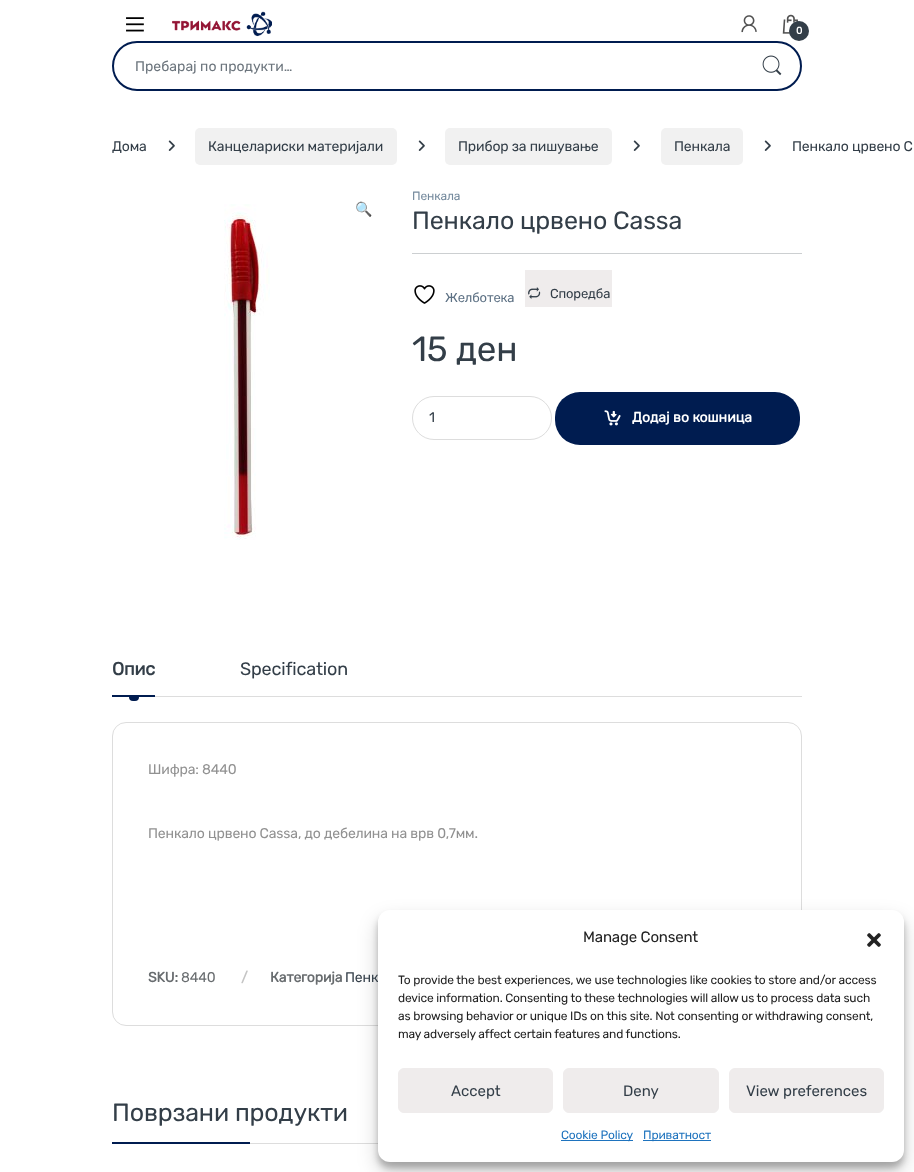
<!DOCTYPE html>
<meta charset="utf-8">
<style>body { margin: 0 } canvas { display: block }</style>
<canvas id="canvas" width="914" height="1172"></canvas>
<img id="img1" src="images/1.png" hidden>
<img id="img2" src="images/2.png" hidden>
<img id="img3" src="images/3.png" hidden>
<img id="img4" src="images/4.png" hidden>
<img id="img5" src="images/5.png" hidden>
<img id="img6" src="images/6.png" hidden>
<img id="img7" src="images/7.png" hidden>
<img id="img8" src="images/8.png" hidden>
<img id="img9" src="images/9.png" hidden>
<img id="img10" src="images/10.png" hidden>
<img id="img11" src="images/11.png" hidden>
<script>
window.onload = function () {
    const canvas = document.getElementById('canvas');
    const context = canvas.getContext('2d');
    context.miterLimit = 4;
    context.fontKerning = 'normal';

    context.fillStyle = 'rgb(255, 255, 255)';
    context.fillRect(0, 0, 914, 1172);
    context.drawImage(document.getElementById('img1'), 126, 17, 18, 15);
    context.drawImage(document.getElementById('img2'), 172, 11, 100, 26);
    context.drawImage(document.getElementById('img3'), 741, 15, 16, 18);
    context.drawImage(document.getElementById('img4'), 782, 14, 17, 20);
    context.fillStyle = 'rgb(51, 62, 72)';
    context.beginPath();
    context.arc(799, 31, 10, 0, 2 * Math.PI);
    context.fill();
    context.beginPath();
    context.roundRect(113, 42, 688, 48, 24);
    context.strokeStyle = 'rgb(0, 28, 80)';
    context.lineWidth = 2;
    context.stroke();
    context.drawImage(document.getElementById('img5'), 762, 55, 20, 21);
    context.drawImage(document.getElementById('img6'), 168, 140, 7, 11);
    context.fillStyle = 'rgb(241, 241, 241)';
    context.beginPath();
    context.roundRect(195, 128, 202, 37, 5);
    context.fill();
    context.drawImage(document.getElementById('img6'), 418, 140, 7, 11);
    context.beginPath();
    context.roundRect(445, 128, 167, 37, 5);
    context.fill();
    context.drawImage(document.getElementById('img6'), 633, 140, 7, 11);
    context.beginPath();
    context.roundRect(661, 128, 82, 37, 5);
    context.fill();
    context.drawImage(document.getElementById('img6'), 764, 140, 7, 11);
    context.drawImage(document.getElementById('img7'), 224, 204, 46, 336);
    context.fillStyle = 'rgb(204, 207, 209)';
    context.fillRect(412, 253, 390, 1);
    context.drawImage(document.getElementById('img8'), 414, 285, 21, 19);
    context.fillStyle = 'rgb(239, 236, 236)';
    context.fillRect(525, 270, 87, 37);
    context.drawImage(document.getElementById('img9'), 528, 287, 13, 12);
    context.beginPath();
    context.roundRect(412.5, 396.5, 139, 43, 21.5);
    context.strokeStyle = 'rgb(221, 221, 221)';
    context.lineWidth = 1;
    context.stroke();
    context.fillStyle = 'rgb(0, 28, 80)';
    context.beginPath();
    context.roundRect(555, 392, 245, 53, 25);
    context.fill();
    context.drawImage(document.getElementById('img10'), 604, 410, 17, 16);
    context.fillRect(112, 695, 43, 2);
    context.beginPath();
    context.roundRect(129, 697, 10, 4, [0, 0, 4, 4]);
    context.fill();
    context.fillStyle = 'rgb(221, 221, 221)';
    context.fillRect(155, 696, 647, 1);
    context.beginPath();
    context.roundRect(112.5, 722.5, 689, 303, 13.5);
    context.stroke();
    context.fillRect(250, 1143, 128, 1);
    context.fillStyle = 'rgb(0, 28, 80)';
    context.fillRect(112, 1142, 138, 2);
    context.fillStyle = 'rgba(0, 0, 0, 0.23)';
    context.filter = 'blur(3px)';
    context.beginPath();
    context.roundRect(378, 916, 526, 252, 12);
    context.fill();
    context.filter = 'none';
    context.fillStyle = 'rgba(0, 0, 0, 0.19)';
    context.filter = 'blur(10px)';
    context.beginPath();
    context.roundRect(378, 920, 526, 252, 12);
    context.fill();
    context.filter = 'none';
    context.letterSpacing = '-0.15px';
    context.font = 'bold 10px Rubik';
    context.fillStyle = 'rgb(255, 255, 255)';
    context.fillText('0', 796, 34);
    context.letterSpacing = '0px';
    context.font = '300 14px Rubik';
    context.fillStyle = 'rgb(108, 117, 125)';
    context.fillText('Пребарај по продукти…', 135, 71);
    context.letterSpacing = '-0.15px';
    context.fillStyle = 'rgb(51, 62, 72)';
    context.fillText('Дома', 112, 151);
    context.fillText('Канцелариски материјали', 208, 151);
    context.fillText('Прибор за пишување', 458, 151);
    context.fillText('Пенкала', 674, 151);
    context.fillText('Пенкало црвено C', 792, 151);
    context.font = '14px Noto Color Emoji';
    context.fillText('🔍', 355, 214);
    context.font = '300 12px Rubik';
    context.fillStyle = 'rgb(118, 139, 158)';
    context.fillText('Пенкала', 412, 200);
    context.font = '300 25px Rubik';
    context.fillStyle = 'rgb(51, 62, 72)';
    context.fillText('Пенкало црвено Cassa', 412, 229);
    context.font = '300 13px Rubik';
    context.fillStyle = 'rgb(93, 113, 132)';
    context.fillText('Желботека', 445, 302);
    context.fillStyle = 'rgb(51, 62, 72)';
    context.fillText('Споредба', 550, 298);
    context.font = '300 35px Rubik';
    context.fillText('15 ден', 412, 361);
    context.letterSpacing = '0px';
    context.font = '300 14px Rubik';
    context.fillText('1', 429, 422);
    context.font = 'bold 14px Rubik';
    context.fillStyle = 'rgb(255, 255, 255)';
    context.fillText('Додај во кошница', 632, 422);
    context.letterSpacing = '-0.15px';
    context.font = 'bold 18px Rubik';
    context.fillStyle = 'rgb(51, 62, 72)';
    context.fillText('Опис', 112, 675);
    context.font = '300 18px Rubik';
    context.fillText('Specification', 240, 675);
    context.font = '300 14px Rubik';
    context.fillStyle = 'rgb(145, 145, 145)';
    context.fillText('Шифра: 8440', 148, 774);
    context.fillText('Пенкало црвено Cassa, до дебелина на врв 0,7мм.', 148, 838);
    context.font = 'bold 14px Rubik';
    context.fillStyle = 'rgb(104, 108, 111)';
    context.fillText('SKU:', 148, 982);
    context.font = '300 14px Rubik';
    context.fillText('8440', 181, 982);
    context.font = 'bold 14px Rubik';
    context.fillStyle = 'rgb(197, 197, 197)';
    context.fillText('/', 241, 982);
    context.fillStyle = 'rgb(104, 108, 111)';
    context.fillText('Категорија', 270, 982);
    context.font = '300 14px Rubik';
    context.fillStyle = 'rgb(51, 62, 72)';
    context.fillText('Пенк', 345, 982);
    context.font = '300 25px Rubik';
    context.fillText('Поврзани продукти', 112, 1121);
    context.fillStyle = 'rgb(255, 255, 255)';
    context.beginPath();
    context.roundRect(378, 910, 526, 252, 12);
    context.fill();
    context.font = '300 15px Rubik';
    context.fillStyle = 'rgb(34, 34, 34)';
    context.fillText('Manage Consent', 583, 942);
    context.drawImage(document.getElementById('img11'), 867, 933, 14, 14);
    context.font = '300 12px Rubik';
    context.fillText('To provide the best experiences, we use technologies like cookies to store and/or access', 398, 984);
    context.wordSpacing = '-0.1px';
    context.fillText('device information. Consenting to these technologies will allow us to process data such', 398, 1002);
    context.wordSpacing = '0px';
    context.fillText('as browsing behavior or unique IDs on this site. Not consenting or withdrawing consent,', 398, 1020);
    context.wordSpacing = '-0.25px';
    context.fillText('may adversely affect certain features and functions.', 398, 1038);
    context.fillStyle = 'rgb(239, 236, 236)';
    context.beginPath();
    context.roundRect(398.5, 1068.5, 154, 44, 5.5);
    context.fill();
    context.strokeStyle = 'rgb(239, 236, 236)';
    context.stroke();
    context.letterSpacing = '0px';
    context.wordSpacing = '0px';
    context.font = '300 15px Rubik';
    context.fillStyle = 'rgb(51, 62, 72)';
    context.fillText('Accept', 451, 1096);
    context.fillStyle = 'rgb(239, 236, 236)';
    context.beginPath();
    context.roundRect(563.5, 1068.5, 155, 44, 5.5);
    context.fill();
    context.stroke();
    context.fillStyle = 'rgb(51, 62, 72)';
    context.fillText('Deny', 623, 1096);
    context.fillStyle = 'rgb(239, 236, 236)';
    context.beginPath();
    context.roundRect(729.5, 1068.5, 154, 44, 5.5);
    context.fill();
    context.stroke();
    context.fillStyle = 'rgb(51, 62, 72)';
    context.fillText('View preferences', 746, 1096);
    context.fillStyle = 'rgb(30, 115, 190)';
    context.fillRect(561, 1140, 72, 1);
    context.letterSpacing = '-0.15px';
    context.font = '300 12px Rubik';
    context.fillText('Cookie Policy', 561, 1139);
    context.fillRect(643, 1140, 68, 1);
    context.fillText('Приватност', 643, 1139);
};
</script>
